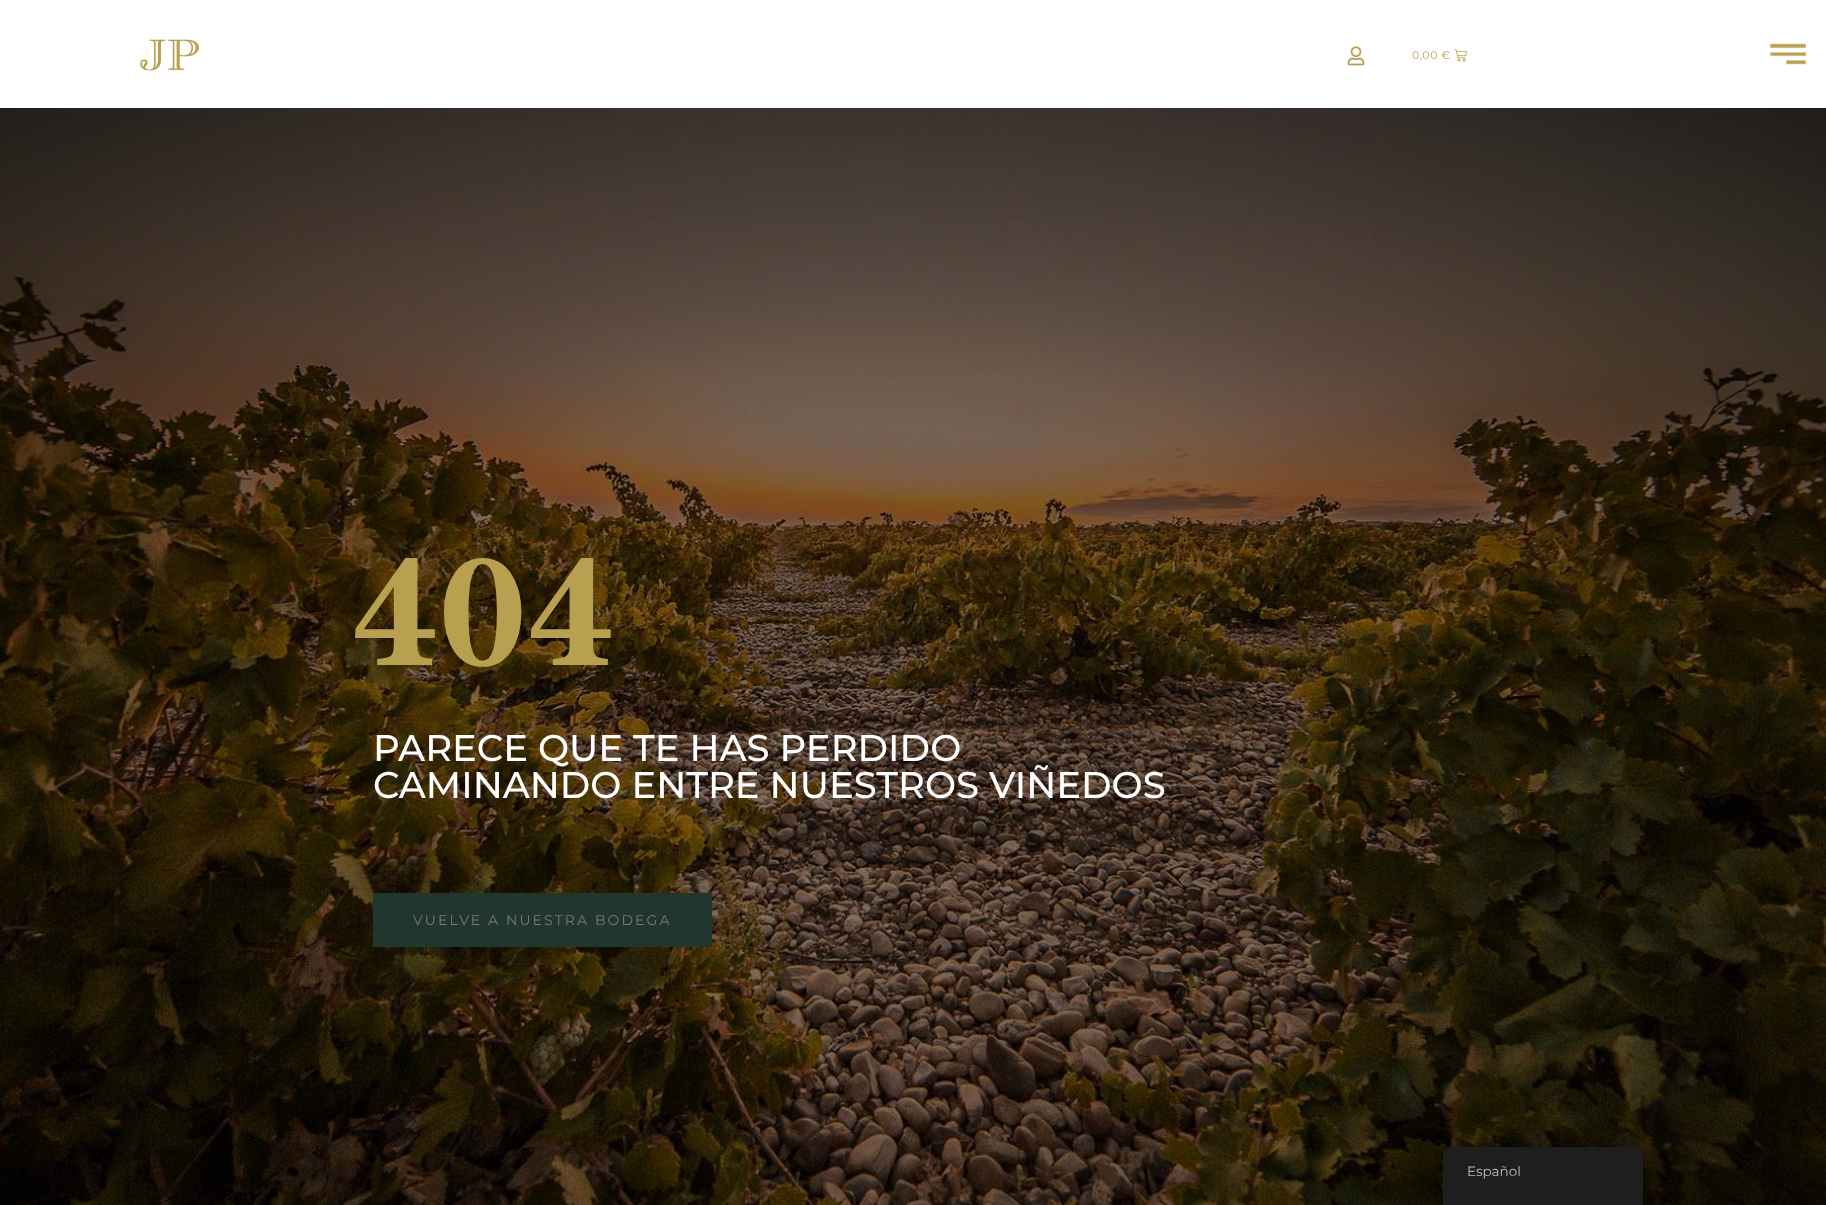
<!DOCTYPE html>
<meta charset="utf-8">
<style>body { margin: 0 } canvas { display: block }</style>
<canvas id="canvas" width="1826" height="1205"></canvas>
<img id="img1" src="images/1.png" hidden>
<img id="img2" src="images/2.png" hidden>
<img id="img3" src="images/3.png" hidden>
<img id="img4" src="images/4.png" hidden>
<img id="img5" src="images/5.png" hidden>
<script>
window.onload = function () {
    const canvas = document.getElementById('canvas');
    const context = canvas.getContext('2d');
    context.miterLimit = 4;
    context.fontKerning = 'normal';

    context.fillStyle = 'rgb(255, 255, 255)';
    context.fillRect(0, 0, 1826, 1205);
    context.drawImage(document.getElementById('img1'), 139, 39, 61, 32);
    context.drawImage(document.getElementById('img2'), 1347, 46, 18, 20);
    context.drawImage(document.getElementById('img3'), 1454, 49, 13, 13);
    context.drawImage(document.getElementById('img4'), 1769, 43, 37, 22);
    context.drawImage(document.getElementById('img5'), 0, 108, 1826, 1097);
    context.fillStyle = 'rgb(33, 54, 44)';
    context.fillRect(373, 893, 339, 54);
    context.fillStyle = 'rgba(0, 0, 0, 0.25)';
    context.filter = 'blur(4px)';
    context.beginPath();
    context.roundRect(1443, 1147, 200, 58, 8);
    context.fill();
    context.filter = 'none';
    context.fillStyle = 'rgb(30, 30, 30)';
    context.beginPath();
    context.roundRect(1443, 1147, 200, 58, [8, 8, 0, 0]);
    context.fill();
    context.letterSpacing = '0.5px';
    context.font = '11px Montserrat';
    context.fillStyle = 'rgb(183, 161, 80)';
    context.fillText('0,00 €', 1412, 59);
    context.letterSpacing = '0px';
    context.font = 'bold 153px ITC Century';
    context.fillText('404', 351, 665);
    context.font = '500 37px Montserrat';
    context.fillStyle = 'rgb(255, 255, 255)';
    context.fillText('PARECE QUE TE HAS PERDIDO', 373, 761);
    context.fillText('CAMINANDO ENTRE NUESTROS VIÑEDOS', 373, 798);
    context.letterSpacing = '2.1px';
    context.font = '14px Montserrat';
    context.fillStyle = 'rgb(122, 122, 122)';
    context.fillText('VUELVE A NUESTRA BODEGA', 413, 925);
    context.letterSpacing = '0px';
    context.font = '13.5px Montserrat';
    context.fillStyle = 'rgb(189, 189, 189)';
    context.fillText('Español', 1467, 1176);
};
</script>
